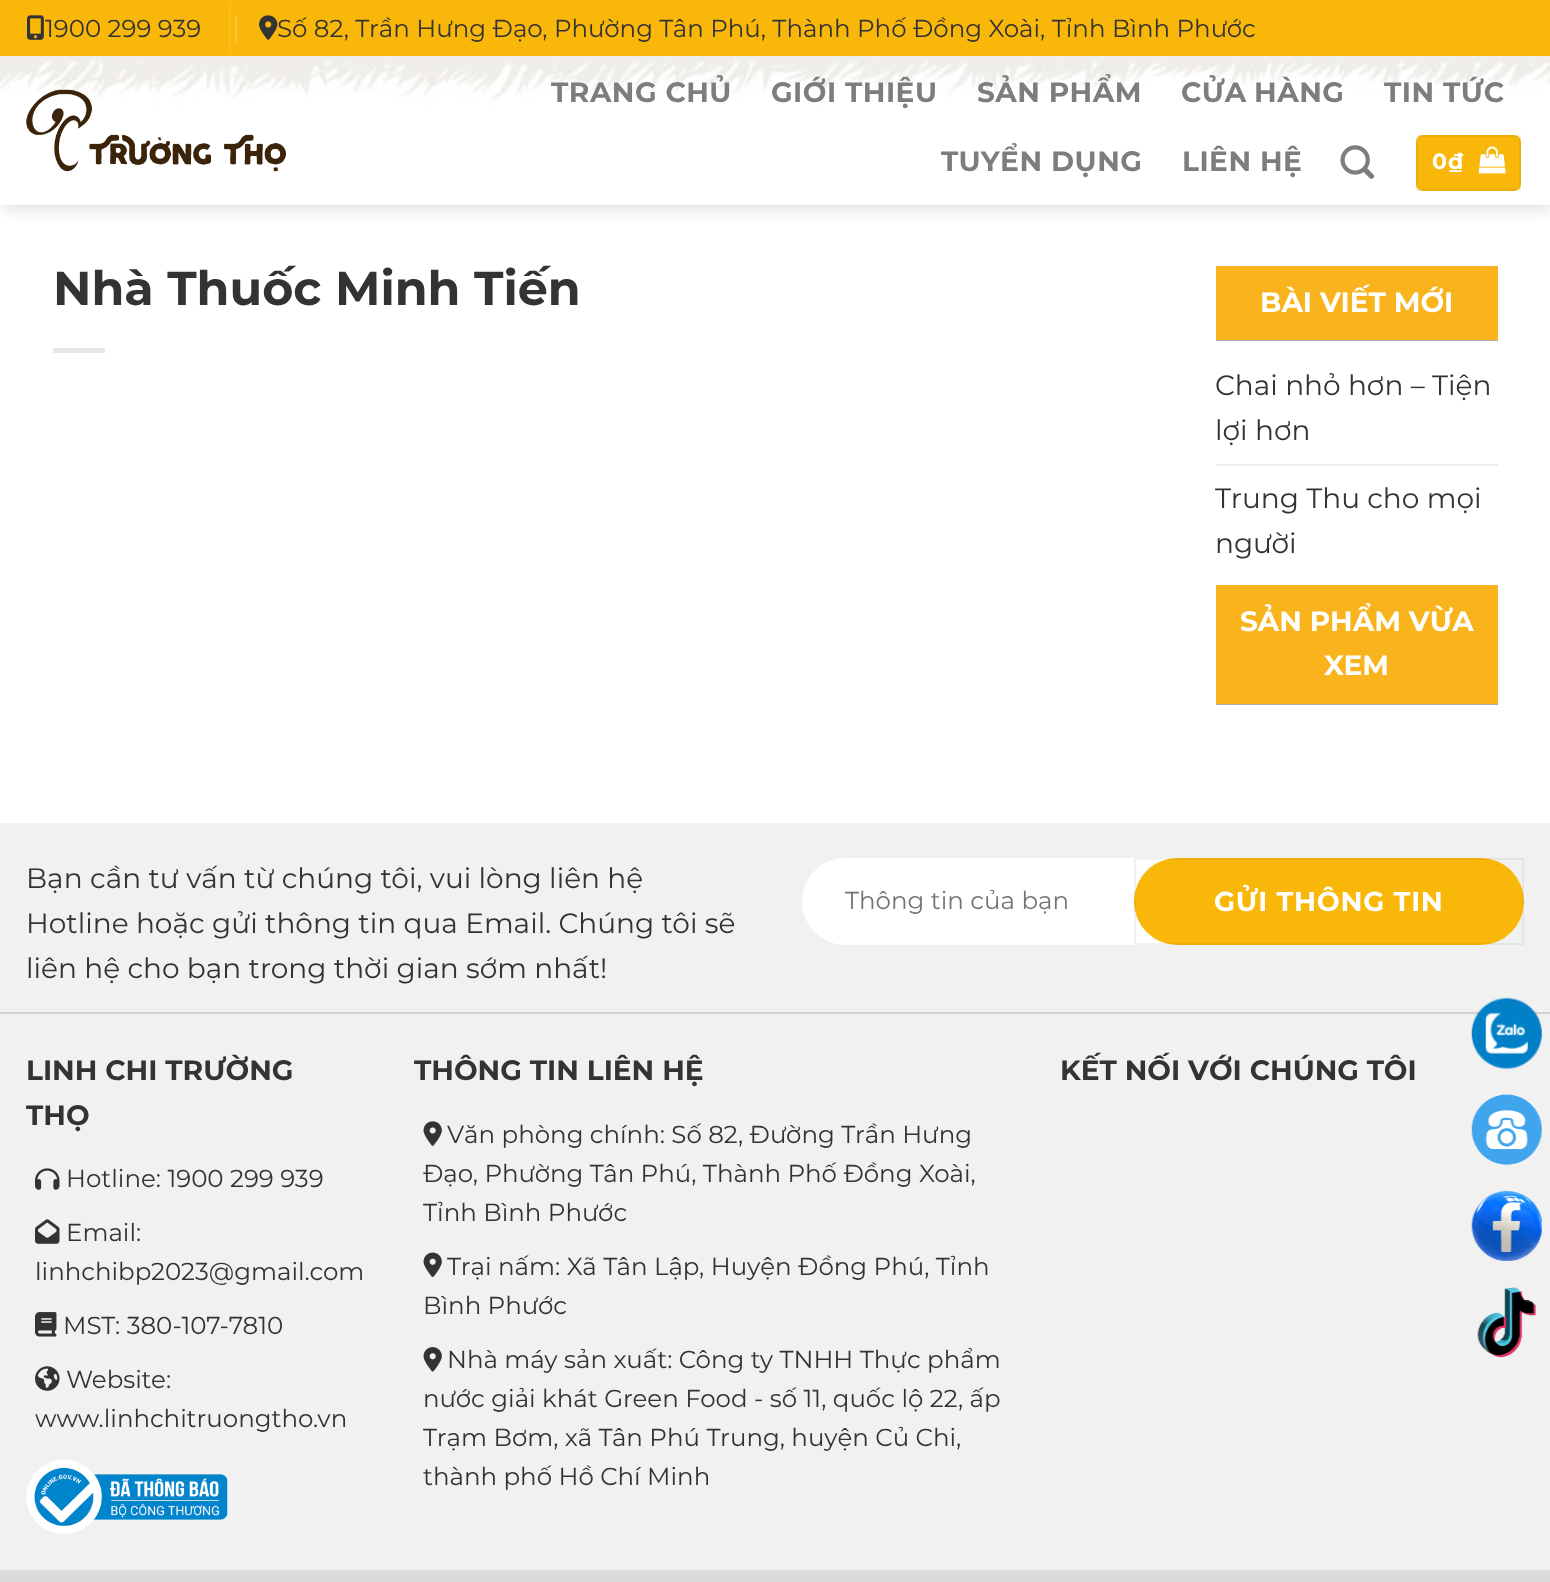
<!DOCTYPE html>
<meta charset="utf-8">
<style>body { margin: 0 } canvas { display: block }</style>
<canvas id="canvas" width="1550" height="1582"></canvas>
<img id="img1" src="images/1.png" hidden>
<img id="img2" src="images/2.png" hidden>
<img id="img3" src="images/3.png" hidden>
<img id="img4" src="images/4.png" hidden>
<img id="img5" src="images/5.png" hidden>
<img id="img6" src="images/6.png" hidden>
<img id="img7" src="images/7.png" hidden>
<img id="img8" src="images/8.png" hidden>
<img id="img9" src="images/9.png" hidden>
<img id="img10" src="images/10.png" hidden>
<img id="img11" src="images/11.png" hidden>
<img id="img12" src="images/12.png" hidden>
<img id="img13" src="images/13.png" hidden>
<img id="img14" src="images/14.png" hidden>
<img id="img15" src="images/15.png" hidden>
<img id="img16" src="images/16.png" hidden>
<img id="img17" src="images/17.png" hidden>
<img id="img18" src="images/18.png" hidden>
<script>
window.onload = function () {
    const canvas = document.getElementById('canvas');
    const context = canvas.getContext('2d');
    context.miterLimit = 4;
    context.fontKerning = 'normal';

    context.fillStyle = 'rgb(255, 255, 255)';
    context.fillRect(0, 0, 1550, 1582);
    context.fillStyle = 'rgba(0, 0, 0, 0.15)';
    context.filter = 'blur(9px)';
    context.beginPath();
    context.rect(2, 2, 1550, 205);
    context.fill();
    context.filter = 'none';
    context.fillStyle = 'rgb(249, 183, 9)';
    context.fillRect(0, 0, 1550, 56);
    context.drawImage(document.getElementById('img1'), 27, 15, 17, 25);
    context.fillStyle = 'rgb(250, 190, 34)';
    context.fillRect(229, 2, 2, 52);
    context.fillStyle = 'rgb(250, 197, 58)';
    context.fillRect(235, 16, 2, 26);
    context.drawImage(document.getElementById('img2'), 259, 15, 19, 25);
    context.drawImage(document.getElementById('img3'), 0, 56, 1550, 149);
    context.drawImage(document.getElementById('img4'), 26, 89, 260, 83);
    context.drawImage(document.getElementById('img5'), 1340, 145, 35, 34);
    context.fillStyle = 'rgb(249, 183, 9)';
    context.beginPath();
    context.roundRect(1416, 135, 105, 56, 7);
    context.fill();
    context.strokeStyle = 'rgba(0, 0, 0, 0.05)';
    context.lineWidth = 2;
    context.strokeRect(1417, 136, 103, 54);
    context.drawImage(document.getElementById('img6'), 1478, 146, 28, 28);
    context.fillStyle = 'rgb(230, 230, 230)';
    context.fillRect(53, 348, 52, 5);
    context.fillStyle = 'rgb(173, 173, 173)';
    context.beginPath();
    context.moveTo(1216, 268);
    context.lineTo(1216, 341);
    context.lineTo(1498, 341);
    context.lineTo(1498, 340);
    context.lineTo(1216, 340);
    context.closePath();
    context.fill();
    context.fillStyle = 'rgb(249, 180, 29)';
    context.fillRect(1216, 266, 282, 74);
    context.fillStyle = 'rgb(236, 236, 236)';
    context.fillRect(1216, 464, 282, 2);
    context.fillStyle = 'rgb(173, 173, 173)';
    context.beginPath();
    context.moveTo(1216, 586);
    context.lineTo(1216, 705);
    context.lineTo(1498, 705);
    context.lineTo(1498, 704);
    context.lineTo(1216, 704);
    context.closePath();
    context.fill();
    context.fillStyle = 'rgb(249, 180, 29)';
    context.fillRect(1216, 585, 282, 119);
    context.fillStyle = 'rgb(241, 241, 241)';
    context.fillRect(0, 823, 1550, 747);
    context.fillStyle = 'rgb(209, 209, 209)';
    context.fillRect(0, 1012, 1550, 2);
    context.fillStyle = 'rgb(255, 255, 255)';
    context.beginPath();
    context.roundRect(802, 858, 722, 87, 43.5);
    context.fill();
    context.fillStyle = 'rgb(249, 183, 9)';
    context.beginPath();
    context.roundRect(1134, 858, 390, 87, 43.5);
    context.fill();
    context.strokeRect(1135, 859, 388, 85);
    context.drawImage(document.getElementById('img7'), 35, 1168, 25, 22);
    context.drawImage(document.getElementById('img8'), 35, 1219, 25, 25);
    context.drawImage(document.getElementById('img9'), 35, 1312, 22, 25);
    context.drawImage(document.getElementById('img10'), 35, 1366, 25, 25);
    context.drawImage(document.getElementById('img11'), 26, 1460, 202, 74);
    context.drawImage(document.getElementById('img12'), 423, 1121, 19, 25);
    context.drawImage(document.getElementById('img13'), 423, 1252, 19, 25);
    context.drawImage(document.getElementById('img14'), 423, 1347, 19, 25);
    context.fillStyle = 'rgb(220, 218, 218)';
    context.fillRect(0, 1570, 1550, 12);
    context.drawImage(document.getElementById('img15'), 1471, 997, 71, 72);
    context.drawImage(document.getElementById('img16'), 1471, 1094, 71, 71);
    context.drawImage(document.getElementById('img17'), 1471, 1190, 71, 71);
    context.drawImage(document.getElementById('img18'), 1477, 1287, 59, 71);
    context.font = '24.5px Montserrat';
    context.fillStyle = 'rgb(51, 51, 51)';
    context.fillText('1900 299 939', 45, 37);
    context.fillText('Số 82, Trần Hưng Đạo, Phường Tân Phú, Thành Phố Đồng Xoài, Tỉnh Bình Phước', 277, 37);
    context.letterSpacing = '0.5px';
    context.font = 'bold 28px Montserrat';
    context.fillStyle = 'rgb(125, 125, 125)';
    context.fillText('TRANG CHỦ', 551, 102);
    context.fillText('GIỚI THIỆU', 771, 102);
    context.fillText('SẢN PHẨM', 977, 102);
    context.wordSpacing = '-1px';
    context.fillText('CỬA HÀNG', 1181, 102);
    context.wordSpacing = '0px';
    context.fillText('TIN TỨC', 1384, 102);
    context.fillText('TUYỂN DỤNG', 941, 171);
    context.fillText('LIÊN HỆ', 1182, 171);
    context.letterSpacing = '1px';
    context.font = 'bold 22px Montserrat';
    context.fillStyle = 'rgb(255, 255, 255)';
    context.fillText('0₫', 1432, 169);
    context.letterSpacing = '0px';
    context.font = 'bold 47.6px Montserrat';
    context.fillStyle = 'rgb(51, 51, 51)';
    context.fillText('Nhà Thuốc Minh Tiến', 53, 305);
    context.font = 'bold 28px Montserrat';
    context.fillStyle = 'rgb(255, 255, 255)';
    context.fillText('BÀI VIẾT MỚI', 1260, 312);
    context.font = '28px Montserrat';
    context.fillStyle = 'rgb(51, 51, 51)';
    context.fillText('Chai nhỏ hơn – Tiện', 1215, 395);
    context.fillText('lợi hơn', 1215, 440);
    context.fillText('Trung Thu cho mọi', 1215, 508);
    context.fillText('người', 1215, 553);
    context.font = 'bold 28px Montserrat';
    context.fillStyle = 'rgb(255, 255, 255)';
    context.fillText('SẢN PHẨM VỪA', 1240, 631);
    context.fillText('XEM', 1324, 675);
    context.font = '28px Montserrat';
    context.fillStyle = 'rgb(51, 51, 51)';
    context.fillText('Bạn cần tư vấn từ chúng tôi, vui lòng liên hệ', 26, 888);
    context.fillText('Hotline hoặc gửi thông tin qua Email. Chúng tôi sẽ', 26, 933);
    context.fillText('liên hệ cho bạn trong thời gian sớm nhất!', 26, 978);
    context.font = '24.5px Montserrat';
    context.fillStyle = 'rgb(117, 117, 117)';
    context.fillText('Thông tin của bạn', 845, 909);
    context.letterSpacing = '0.75px';
    context.font = 'bold 27.25px Montserrat';
    context.fillStyle = 'rgb(255, 255, 255)';
    context.fillText('GỬI THÔNG TIN', 1214, 911);
    context.letterSpacing = '0px';
    context.font = 'bold 28px Montserrat';
    context.fillStyle = 'rgb(51, 51, 51)';
    context.fillText('LINH CHI TRƯỜNG', 26, 1080);
    context.fillText('THỌ', 26, 1125);
    context.font = '24.5px Montserrat';
    context.fillText('Hotline: 1900 299 939', 66, 1187);
    context.fillText('Email:', 66, 1241);
    context.fillText('linhchibp2023@gmail.com', 35, 1280);
    context.fillText('MST: 380-107-7810', 63, 1334);
    context.fillText('Website:', 66, 1388);
    context.fillText('www.linhchitruongtho.vn', 35, 1427);
    context.font = 'bold 28px Montserrat';
    context.fillText('THÔNG TIN LIÊN HỆ', 414, 1080);
    context.font = '24.5px Montserrat';
    context.fillText('Văn phòng chính: Số 82, Đường Trần Hưng', 447, 1143);
    context.fillText('Đạo, Phường Tân Phú, Thành Phố Đồng Xoài,', 423, 1182);
    context.fillText('Tỉnh Bình Phước', 423, 1221);
    context.fillText('Trại nấm: Xã Tân Lập, Huyện Đồng Phú, Tỉnh', 447, 1275);
    context.fillText('Bình Phước', 423, 1314);
    context.fillText('Nhà máy sản xuất: Công ty TNHH Thực phẩm', 447, 1368);
    context.fillText('nước giải khát Green Food - số 11, quốc lộ 22, ấp', 423, 1407);
    context.fillText('Trạm Bơm, xã Tân Phú Trung, huyện Củ Chi,', 423, 1446);
    context.fillText('thành phố Hồ Chí Minh', 423, 1485);
    context.font = 'bold 28px Montserrat';
    context.fillText('KẾT NỐI VỚI CHÚNG TÔI', 1060, 1080);
};
</script>
